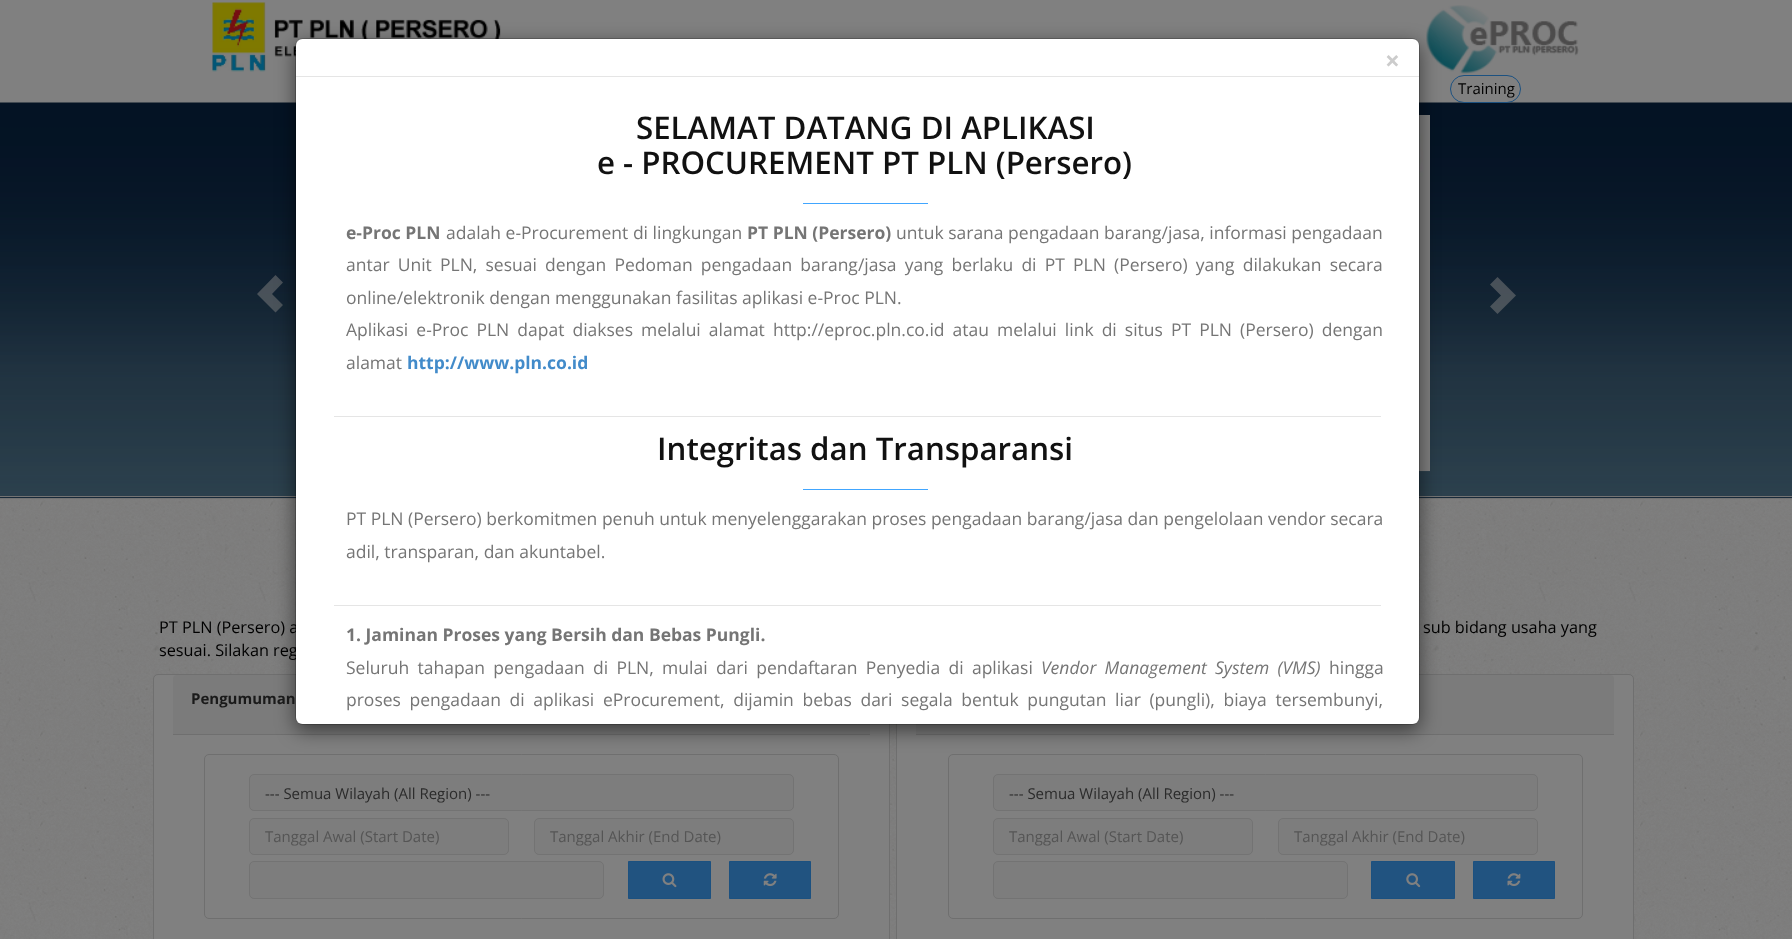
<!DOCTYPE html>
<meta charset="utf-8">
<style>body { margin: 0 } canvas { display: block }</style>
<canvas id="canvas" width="1792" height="939"></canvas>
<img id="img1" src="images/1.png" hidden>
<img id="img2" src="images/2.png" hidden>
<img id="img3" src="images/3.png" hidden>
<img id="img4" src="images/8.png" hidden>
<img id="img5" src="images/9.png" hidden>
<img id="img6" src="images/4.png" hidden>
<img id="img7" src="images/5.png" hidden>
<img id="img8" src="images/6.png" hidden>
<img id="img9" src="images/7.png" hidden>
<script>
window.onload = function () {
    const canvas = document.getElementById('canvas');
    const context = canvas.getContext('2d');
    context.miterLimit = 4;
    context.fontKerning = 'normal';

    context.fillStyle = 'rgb(128, 128, 128)';
    context.fillRect(0, 0, 1792, 939);
    context.fillStyle = 'rgb(4, 19, 36)';
    context.fillRect(0, 497, 1792, 1);
    context.drawImage(document.getElementById('img1'), 0, 102, 1792, 396);
    context.fillStyle = 'rgb(115, 115, 115)';
    context.fillRect(0, 496, 1792, 1);
    context.fillStyle = 'rgba(128, 128, 128, 0.5)';
    context.beginPath();
    context.moveTo(257, 294);
    context.lineTo(275.5, 312.5);
    context.lineTo(283, 305);
    context.lineTo(272, 294);
    context.lineTo(283, 282.5);
    context.lineTo(275.5, 275);
    context.closePath();
    context.fill();
    context.drawImage(document.getElementById('img2'), 1419, 115, 11, 357);
    context.fillStyle = 'rgb(115, 115, 115)';
    context.fillRect(0, 498, 1792, 1);
    context.drawImage(document.getElementById('img3'), 0, 499, 1792, 440);
    context.fillStyle = 'rgb(128, 128, 128)';
    context.beginPath();
    context.roundRect(153.5, 674.5, 736, 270, 4.5);
    context.fill();
    context.strokeStyle = 'rgb(111, 111, 111)';
    context.stroke();
    context.fillStyle = 'rgb(123, 123, 123)';
    context.beginPath();
    context.roundRect(173, 675, 697, 60, [4, 4, 0, 0]);
    context.fill();
    context.fillStyle = 'rgb(111, 111, 111)';
    context.fillRect(173, 734, 697, 1);
    context.beginPath();
    context.roundRect(204.5, 754.5, 634, 164, 4.5);
    context.stroke();
    context.fillStyle = 'rgb(128, 128, 128)';
    context.beginPath();
    context.roundRect(896.5, 674.5, 737, 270, 4.5);
    context.fill();
    context.stroke();
    context.fillStyle = 'rgb(123, 123, 123)';
    context.beginPath();
    context.roundRect(916, 675, 698, 60, [4, 4, 0, 0]);
    context.fill();
    context.fillStyle = 'rgb(111, 111, 111)';
    context.fillRect(916, 734, 698, 1);
    context.beginPath();
    context.roundRect(948.5, 754.5, 634, 164, 4.5);
    context.stroke();
    context.drawImage(document.getElementById('img4'), 212, 2, 289, 70);
    context.drawImage(document.getElementById('img5'), 1426, 5, 153, 69);
    context.fillStyle = 'rgba(0, 0, 0, 0.5)';
    context.filter = 'blur(9.5px)';
    context.beginPath();
    context.roundRect(295, 44, 1125, 687, 8);
    context.fill();
    context.filter = 'none';
    context.fillStyle = 'rgba(128, 128, 128, 0.5)';
    context.beginPath();
    context.moveTo(1490, 306.5);
    context.lineTo(1501, 295.5);
    context.lineTo(1490, 284.5);
    context.lineTo(1497.5, 277);
    context.lineTo(1516, 295.5);
    context.lineTo(1497.5, 314);
    context.closePath();
    context.fill();
    context.fillStyle = 'rgb(125, 125, 125)';
    context.beginPath();
    context.roundRect(249.5, 774.5, 544, 36, 4.5);
    context.fill();
    context.strokeStyle = 'rgb(115, 115, 115)';
    context.stroke();
    context.beginPath();
    context.roundRect(249.5, 818.5, 259, 36, 4.5);
    context.fill();
    context.stroke();
    context.beginPath();
    context.roundRect(534.5, 818.5, 259, 36, 4.5);
    context.fill();
    context.stroke();
    context.beginPath();
    context.roundRect(249.5, 861.5, 354, 37, 4.5);
    context.fill();
    context.stroke();
    context.fillStyle = 'rgb(33, 83, 128)';
    context.beginPath();
    context.rect(628.5, 861.5, 82, 37);
    context.fill();
    context.strokeStyle = 'rgb(28, 81, 128)';
    context.stroke();
    context.drawImage(document.getElementById('img6'), 662, 873, 15, 15);
    context.beginPath();
    context.rect(729.5, 861.5, 81, 37);
    context.fill();
    context.stroke();
    context.drawImage(document.getElementById('img7'), 763, 873, 14, 14);
    context.fillStyle = 'rgb(125, 125, 125)';
    context.beginPath();
    context.roundRect(993.5, 774.5, 544, 36, 4.5);
    context.fill();
    context.strokeStyle = 'rgb(115, 115, 115)';
    context.stroke();
    context.beginPath();
    context.roundRect(993.5, 818.5, 259, 36, 4.5);
    context.fill();
    context.stroke();
    context.beginPath();
    context.roundRect(1278.5, 818.5, 259, 36, 4.5);
    context.fill();
    context.stroke();
    context.beginPath();
    context.roundRect(993.5, 861.5, 354, 37, 4.5);
    context.fill();
    context.stroke();
    context.fillStyle = 'rgb(33, 83, 128)';
    context.beginPath();
    context.rect(1371.5, 861.5, 83, 37);
    context.fill();
    context.strokeStyle = 'rgb(28, 81, 128)';
    context.stroke();
    context.drawImage(document.getElementById('img8'), 1406, 873, 15, 15);
    context.beginPath();
    context.rect(1473.5, 861.5, 81, 37);
    context.fill();
    context.stroke();
    context.drawImage(document.getElementById('img9'), 1507, 873, 14, 14);
    context.beginPath();
    context.roundRect(1450.5, 75.5, 70, 27, 13.5);
    context.stroke();
    context.font = '16.25px Open Sans';
    context.fillStyle = 'rgb(0, 0, 0)';
    context.fillText('PT PLN (Persero) a', 159, 633);
    context.fillText('sub bidang usaha yang', 1423, 633);
    context.fillText('sesuai. Silakan reg', 159, 656);
    context.fillStyle = 'rgb(255, 255, 255)';
    context.beginPath();
    context.roundRect(296, 39, 1123, 685, 6);
    context.fill();
    context.beginPath();
    context.roundRect(295.5, 38.5, 1124, 686, 7.5);
    context.strokeStyle = 'rgba(0, 0, 0, 0.2)';
    context.stroke();
    context.wordSpacing = '4.1px';
    context.font = '17.5px Open Sans';
    context.fillStyle = 'rgb(117, 117, 117)';
    context.fillText('proses pengadaan di aplikasi eProcurement, dijamin bebas dari segala bentuk pungutan liar (pungli), biaya tersembunyi,', 346, 706);
    context.wordSpacing = '0px';
    context.fillText('hingga', 1329, 674);
    context.wordSpacing = '3.75px';
    context.font = 'italic 17.5px Open Sans';
    context.fillText('Vendor Management System (VMS)', 1041, 674);
    context.font = '17.5px Open Sans';
    context.fillText('Seluruh tahapan pengadaan di PLN, mulai dari pendaftaran Penyedia di aplikasi', 346, 674);
    context.wordSpacing = '0px';
    context.font = 'bold 17.5px Open Sans';
    context.fillText('1. Jaminan Proses yang Bersih dan Bebas Pungli.', 346, 641);
    context.fillStyle = 'rgb(65, 166, 255)';
    context.fillRect(803, 489, 125, 1);
    context.font = '600 31.25px Open Sans';
    context.fillStyle = 'rgb(17, 17, 17)';
    context.fillText('Integritas dan Transparansi', 657, 460);
    context.font = '17.5px Open Sans';
    context.fillStyle = 'rgb(117, 117, 117)';
    context.fillText('adil, transparan, dan akuntabel.', 346, 558);
    context.fillText('PT PLN (Persero) berkomitmen penuh untuk menyelenggarakan proses pengadaan barang/jasa dan pengelolaan vendor secara', 346, 525);
    context.fillStyle = 'rgb(229, 229, 229)';
    context.fillRect(334, 605, 1047, 1);
    context.fillStyle = 'rgb(65, 166, 255)';
    context.fillRect(803, 203, 125, 1);
    context.font = '600 31.25px Open Sans';
    context.fillStyle = 'rgb(17, 17, 17)';
    context.fillText('e - PROCUREMENT PT PLN (Persero)', 597, 174);
    context.fillText('SELAMAT DATANG DI APLIKASI', 636, 139);
    context.font = 'bold 17.5px Open Sans';
    context.fillStyle = 'rgb(66, 139, 202)';
    context.fillText('http://www.pln.co.id', 407, 369);
    context.font = '17.5px Open Sans';
    context.fillStyle = 'rgb(117, 117, 117)';
    context.fillText('alamat', 346, 369);
    context.wordSpacing = '3.5px';
    context.fillText('Aplikasi e-Proc PLN dapat diakses melalui alamat http://eproc.pln.co.id atau melalui link di situs PT PLN (Persero) dengan', 346, 336);
    context.wordSpacing = '0px';
    context.fillText('online/elektronik dengan menggunakan fasilitas aplikasi e-Proc PLN.', 346, 304);
    context.wordSpacing = '3.6px';
    context.fillText('antar Unit PLN, sesuai dengan Pedoman pengadaan barang/jasa yang berlaku di PT PLN (Persero) yang dilakukan secara', 346, 271);
    context.wordSpacing = '0px';
    context.fillText('untuk sarana pengadaan barang/jasa, informasi pengadaan', 896, 239);
    context.font = 'bold 17.5px Open Sans';
    context.fillText('PT PLN (Persero)', 747, 239);
    context.font = '17.5px Open Sans';
    context.fillText('adalah e-Procurement di lingkungan', 446, 239);
    context.font = 'bold 17.5px Open Sans';
    context.fillText('e-Proc PLN', 346, 239);
    context.fillStyle = 'rgb(229, 229, 229)';
    context.fillRect(334, 416, 1047, 1);
    context.font = 'bold 26px Open Sans';
    context.fillStyle = 'rgb(204, 204, 204)';
    context.fillText('×', 1385, 70);
    context.fillStyle = 'rgb(229, 229, 229)';
    context.fillRect(296, 76, 1123, 1);
    context.font = 'bold 15px Open Sans';
    context.fillStyle = 'rgb(26, 26, 26)';
    context.fillText('Pengumuman', 191, 704);
    context.font = '15px Open Sans';
    context.fillStyle = 'rgb(43, 43, 43)';
    context.fillText('--- Semua Wilayah (All Region) ---', 265, 799);
    context.fillStyle = 'rgb(85, 85, 85)';
    context.fillText('Tanggal Awal (Start Date)', 265, 842);
    context.fillText('Tanggal Akhir (End Date)', 550, 842);
    context.fillStyle = 'rgb(43, 43, 43)';
    context.fillText('--- Semua Wilayah (All Region) ---', 1009, 799);
    context.fillStyle = 'rgb(85, 85, 85)';
    context.fillText('Tanggal Awal (Start Date)', 1009, 842);
    context.fillText('Tanggal Akhir (End Date)', 1294, 842);
    context.fillStyle = 'rgb(0, 0, 0)';
    context.fillText('Training', 1458, 94);
};
</script>
